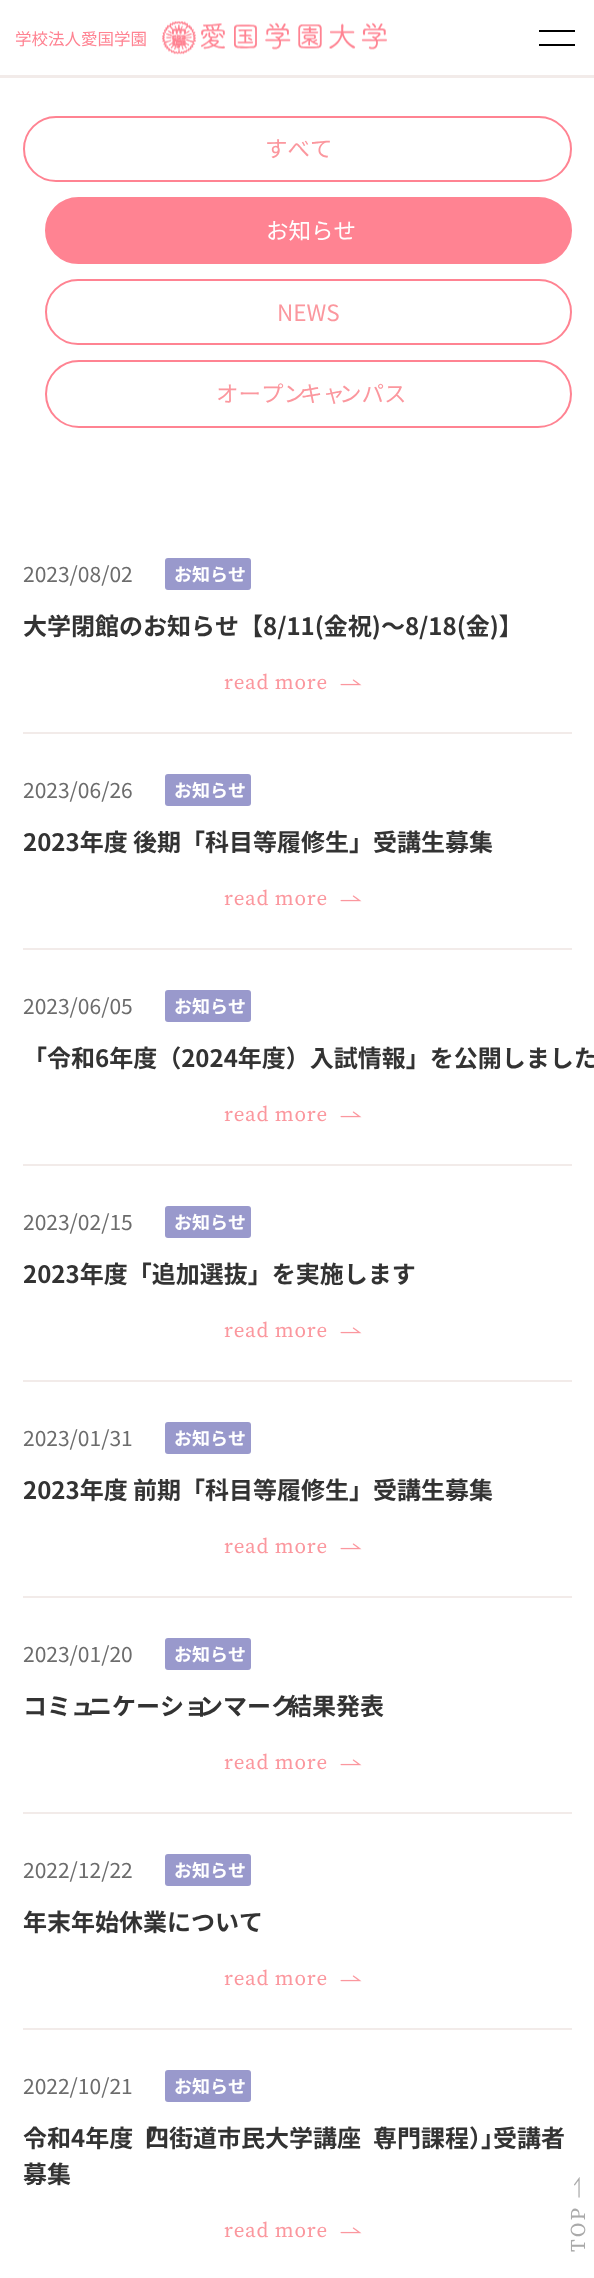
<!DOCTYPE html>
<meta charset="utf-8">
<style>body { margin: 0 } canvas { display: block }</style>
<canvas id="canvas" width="594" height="2278"></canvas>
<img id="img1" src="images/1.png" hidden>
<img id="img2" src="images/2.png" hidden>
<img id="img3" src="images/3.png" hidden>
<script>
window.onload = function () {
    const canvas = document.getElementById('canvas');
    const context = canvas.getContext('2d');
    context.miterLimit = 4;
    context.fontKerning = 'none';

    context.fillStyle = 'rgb(255, 255, 255)';
    context.fillRect(0, 0, 594, 2278);
    context.fillStyle = 'rgb(242, 235, 233)';
    context.fillRect(0, 75, 594, 3);
    context.drawImage(document.getElementById('img1'), 162, 21, 225, 34);
    context.fillStyle = 'rgb(0, 0, 0)';
    context.fillRect(539, 30, 36, 2);
    context.fillRect(539, 44, 36, 2);
    context.beginPath();
    context.roundRect(24, 117, 547, 64, 32);
    context.strokeStyle = 'rgb(255, 131, 146)';
    context.lineWidth = 2;
    context.stroke();
    context.fillStyle = 'rgb(255, 131, 146)';
    context.beginPath();
    context.roundRect(46, 198, 525, 65, 32.5);
    context.fill();
    context.stroke();
    context.beginPath();
    context.roundRect(46, 280, 525, 64, 32);
    context.stroke();
    context.beginPath();
    context.roundRect(46, 361, 525, 66, 33);
    context.stroke();
    context.fillStyle = 'rgb(153, 153, 204)';
    context.beginPath();
    context.roundRect(165, 558, 86, 32, 3);
    context.fill();
    context.drawImage(document.getElementById('img2'), 340, 679, 22, 7);
    context.fillStyle = 'rgb(242, 235, 233)';
    context.fillRect(23, 732, 549, 2);
    context.fillStyle = 'rgb(153, 153, 204)';
    context.beginPath();
    context.roundRect(165, 774, 86, 32, 3);
    context.fill();
    context.drawImage(document.getElementById('img2'), 340, 895, 22, 7);
    context.fillStyle = 'rgb(242, 235, 233)';
    context.fillRect(23, 948, 549, 2);
    context.fillStyle = 'rgb(153, 153, 204)';
    context.beginPath();
    context.roundRect(165, 990, 86, 32, 3);
    context.fill();
    context.drawImage(document.getElementById('img2'), 340, 1111, 22, 7);
    context.fillStyle = 'rgb(242, 235, 233)';
    context.fillRect(23, 1164, 549, 2);
    context.fillStyle = 'rgb(153, 153, 204)';
    context.beginPath();
    context.roundRect(165, 1206, 86, 32, 3);
    context.fill();
    context.drawImage(document.getElementById('img2'), 340, 1327, 22, 7);
    context.fillStyle = 'rgb(242, 235, 233)';
    context.fillRect(23, 1380, 549, 2);
    context.fillStyle = 'rgb(153, 153, 204)';
    context.beginPath();
    context.roundRect(165, 1422, 86, 32, 3);
    context.fill();
    context.drawImage(document.getElementById('img2'), 340, 1543, 22, 7);
    context.fillStyle = 'rgb(242, 235, 233)';
    context.fillRect(23, 1596, 549, 2);
    context.fillStyle = 'rgb(153, 153, 204)';
    context.beginPath();
    context.roundRect(165, 1638, 86, 32, 3);
    context.fill();
    context.drawImage(document.getElementById('img2'), 340, 1759, 22, 7);
    context.fillStyle = 'rgb(242, 235, 233)';
    context.fillRect(23, 1812, 549, 2);
    context.fillStyle = 'rgb(153, 153, 204)';
    context.beginPath();
    context.roundRect(165, 1854, 86, 32, 3);
    context.fill();
    context.drawImage(document.getElementById('img2'), 340, 1975, 22, 7);
    context.fillStyle = 'rgb(242, 235, 233)';
    context.fillRect(23, 2028, 549, 2);
    context.fillStyle = 'rgb(153, 153, 204)';
    context.beginPath();
    context.roundRect(165, 2070, 86, 32, 3);
    context.fill();
    context.drawImage(document.getElementById('img2'), 340, 2227, 22, 7);
    context.drawImage(document.getElementById('img3'), 574, 2177, 6, 21);
    context.font = '16.5px Noto Sans JP';
    context.fillStyle = 'rgb(255, 131, 146)';
    context.fillText('学校法人愛国学園', 15, 45);
    context.font = '22.5px Noto Sans JP';
    context.fillStyle = 'rgb(251, 151, 158)';
    context.fillText('すべて', 265, 157);
    context.fillStyle = 'rgb(255, 255, 255)';
    context.fillText('お知らせ', 266, 239);
    context.fillStyle = 'rgb(251, 151, 158)';
    context.fillText('NEWS', 277, 321);
    context.fillText('オープン', 216, 402);
    context.fillText('キャ', 300, 402);
    context.fillText('ンパス', 339, 402);
    context.font = '21px Noto Sans JP';
    context.fillStyle = 'rgb(108, 108, 108)';
    context.fillText('2023/08/02', 23, 582);
    context.font = 'bold 18px Noto Sans JP';
    context.fillStyle = 'rgb(255, 255, 255)';
    context.fillText('お知らせ', 174, 581);
    context.font = 'bold 24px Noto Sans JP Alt';
    context.fillStyle = 'rgb(51, 51, 51)';
    context.fillText('大学閉館のお知らせ【8/11(金祝)～8/18(金)】', 23, 635);
    context.letterSpacing = '0.75px';
    context.font = '21px Source Serif Pro';
    context.fillStyle = 'rgb(251, 151, 158)';
    context.fillText('read more', 224, 689);
    context.letterSpacing = '0px';
    context.font = '21px Noto Sans JP';
    context.fillStyle = 'rgb(108, 108, 108)';
    context.fillText('2023/06/26', 23, 798);
    context.font = 'bold 18px Noto Sans JP';
    context.fillStyle = 'rgb(255, 255, 255)';
    context.fillText('お知らせ', 174, 797);
    context.font = 'bold 24px Noto Sans JP Alt';
    context.fillStyle = 'rgb(51, 51, 51)';
    context.fillText('2023年度 後期「科目等履修生」受講生募集', 23, 851);
    context.letterSpacing = '0.75px';
    context.font = '21px Source Serif Pro';
    context.fillStyle = 'rgb(251, 151, 158)';
    context.fillText('read more', 224, 905);
    context.letterSpacing = '0px';
    context.font = '21px Noto Sans JP';
    context.fillStyle = 'rgb(108, 108, 108)';
    context.fillText('2023/06/05', 23, 1014);
    context.font = 'bold 18px Noto Sans JP';
    context.fillStyle = 'rgb(255, 255, 255)';
    context.fillText('お知らせ', 174, 1013);
    context.font = 'bold 24px Noto Sans JP Alt';
    context.fillStyle = 'rgb(51, 51, 51)';
    context.fillText('「令和6年度（2024年度）入試情報」を公開しました', 23, 1067);
    context.letterSpacing = '0.75px';
    context.font = '21px Source Serif Pro';
    context.fillStyle = 'rgb(251, 151, 158)';
    context.fillText('read more', 224, 1121);
    context.letterSpacing = '0px';
    context.font = '21px Noto Sans JP';
    context.fillStyle = 'rgb(108, 108, 108)';
    context.fillText('2023/02/15', 23, 1230);
    context.font = 'bold 18px Noto Sans JP';
    context.fillStyle = 'rgb(255, 255, 255)';
    context.fillText('お知らせ', 174, 1229);
    context.font = 'bold 24px Noto Sans JP Alt';
    context.fillStyle = 'rgb(51, 51, 51)';
    context.fillText('2023年度「追加選抜」を実施します', 23, 1283);
    context.letterSpacing = '0.75px';
    context.font = '21px Source Serif Pro';
    context.fillStyle = 'rgb(251, 151, 158)';
    context.fillText('read more', 224, 1337);
    context.letterSpacing = '0px';
    context.font = '21px Noto Sans JP';
    context.fillStyle = 'rgb(108, 108, 108)';
    context.fillText('2023/01/31', 23, 1446);
    context.font = 'bold 18px Noto Sans JP';
    context.fillStyle = 'rgb(255, 255, 255)';
    context.fillText('お知らせ', 174, 1445);
    context.font = 'bold 24px Noto Sans JP Alt';
    context.fillStyle = 'rgb(51, 51, 51)';
    context.fillText('2023年度 前期「科目等履修生」受講生募集', 23, 1499);
    context.letterSpacing = '0.75px';
    context.font = '21px Source Serif Pro';
    context.fillStyle = 'rgb(251, 151, 158)';
    context.fillText('read more', 224, 1553);
    context.letterSpacing = '0px';
    context.font = '21px Noto Sans JP';
    context.fillStyle = 'rgb(108, 108, 108)';
    context.fillText('2023/01/20', 23, 1662);
    context.font = 'bold 18px Noto Sans JP';
    context.fillStyle = 'rgb(255, 255, 255)';
    context.fillText('お知らせ', 174, 1661);
    context.font = 'bold 24px Noto Sans JP';
    context.fillStyle = 'rgb(51, 51, 51)';
    context.fillText('コミュ', 23, 1715);
    context.fillText('ニケーショ', 88, 1715);
    context.fillText('ンマーク', 199, 1715);
    context.fillText('結果発表', 288, 1715);
    context.letterSpacing = '0.75px';
    context.font = '21px Source Serif Pro';
    context.fillStyle = 'rgb(251, 151, 158)';
    context.fillText('read more', 224, 1769);
    context.letterSpacing = '0px';
    context.font = '21px Noto Sans JP';
    context.fillStyle = 'rgb(108, 108, 108)';
    context.fillText('2022/12/22', 23, 1878);
    context.font = 'bold 18px Noto Sans JP';
    context.fillStyle = 'rgb(255, 255, 255)';
    context.fillText('お知らせ', 174, 1877);
    context.font = 'bold 24px Noto Sans JP';
    context.fillStyle = 'rgb(51, 51, 51)';
    context.fillText('年末年始休業について', 23, 1931);
    context.letterSpacing = '0.75px';
    context.font = '21px Source Serif Pro';
    context.fillStyle = 'rgb(251, 151, 158)';
    context.fillText('read more', 224, 1985);
    context.letterSpacing = '0px';
    context.font = '21px Noto Sans JP';
    context.fillStyle = 'rgb(108, 108, 108)';
    context.fillText('2022/10/21', 23, 2094);
    context.font = 'bold 18px Noto Sans JP';
    context.fillStyle = 'rgb(255, 255, 255)';
    context.fillText('お知らせ', 174, 2093);
    context.font = 'bold 24px Noto Sans JP';
    context.fillStyle = 'rgb(51, 51, 51)';
    context.fillText('令和4年度「', 23, 2147);
    context.fillText('四街道市民大学講座（', 145, 2147);
    context.fillText('専門課程）」', 373, 2147);
    context.fillText('受講者', 493, 2147);
    context.fillText('募集', 23, 2183);
    context.letterSpacing = '0.75px';
    context.font = '21px Source Serif Pro';
    context.fillStyle = 'rgb(251, 151, 158)';
    context.fillText('read more', 224, 2237);
    context.letterSpacing = '2px';
    context.fillStyle = 'rgb(170, 170, 170)';
    context.save();
    context.translate(585, 2252);
    context.rotate(-90 * Math.PI / 180);
    context.fillText('TOP', 0, 0);
    context.restore();
};
</script>
